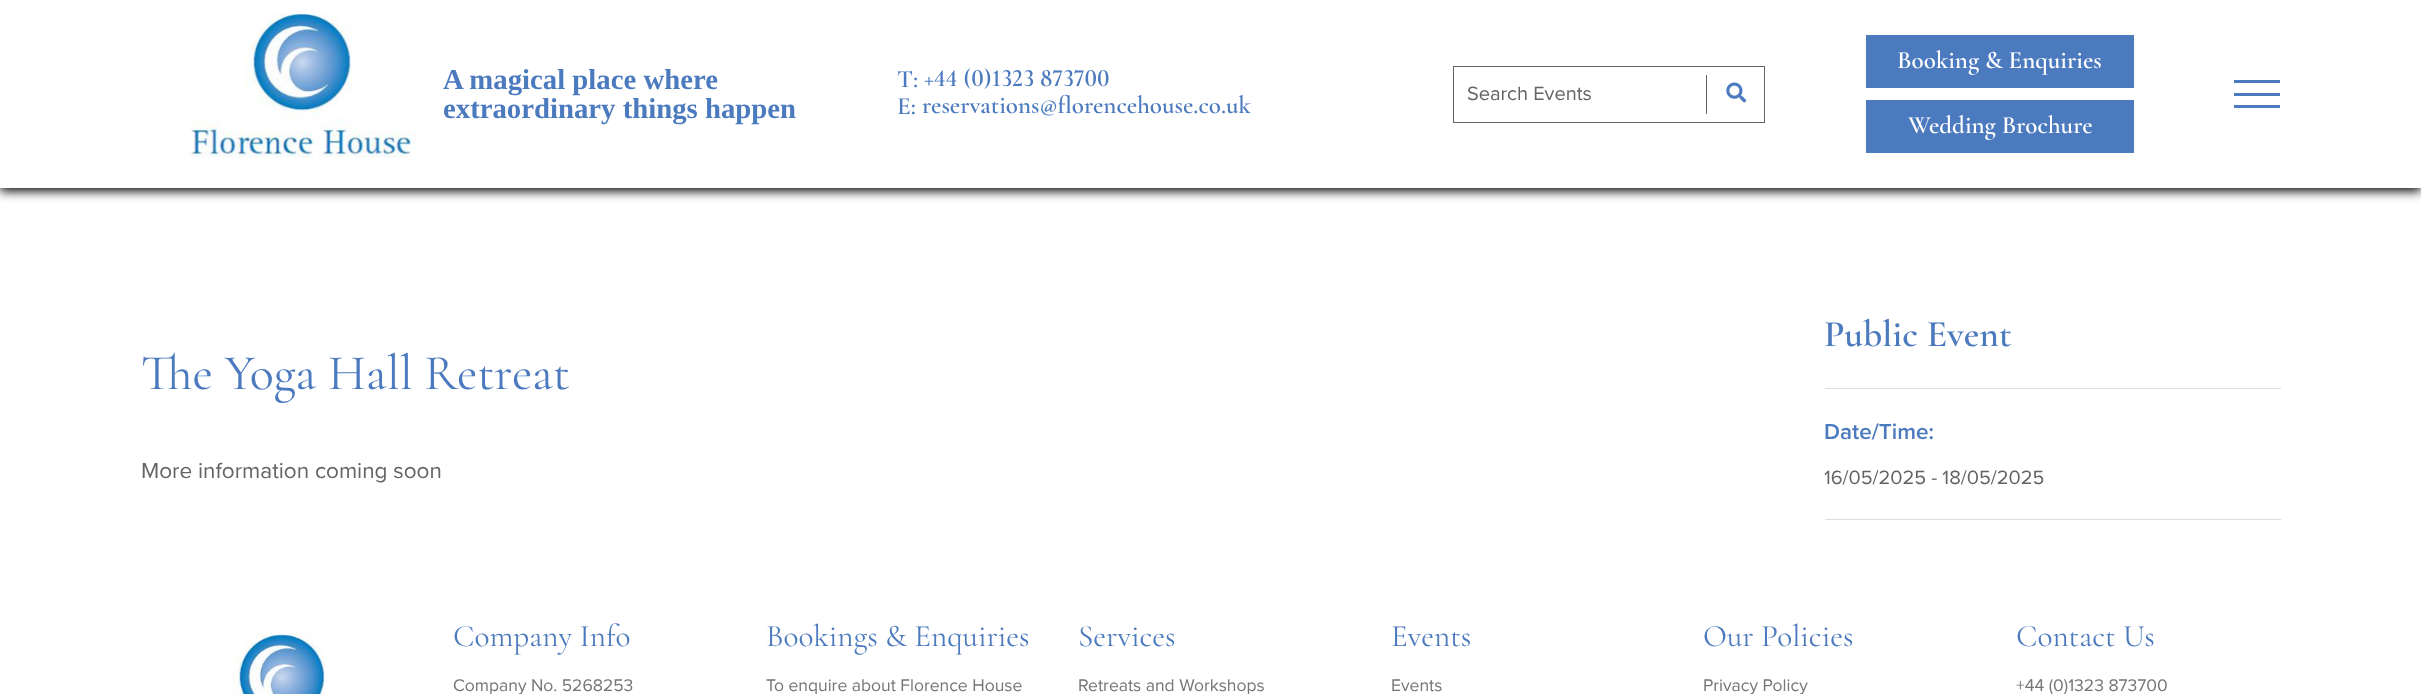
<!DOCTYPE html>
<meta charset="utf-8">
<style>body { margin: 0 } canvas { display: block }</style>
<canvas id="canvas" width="2421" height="694"></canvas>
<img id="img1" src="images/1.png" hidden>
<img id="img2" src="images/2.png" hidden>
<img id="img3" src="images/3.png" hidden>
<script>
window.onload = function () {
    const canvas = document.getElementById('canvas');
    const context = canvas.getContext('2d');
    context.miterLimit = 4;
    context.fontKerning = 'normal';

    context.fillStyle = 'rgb(255, 255, 255)';
    context.fillRect(0, 0, 2421, 694);
    context.fillStyle = 'rgb(0, 0, 0)';
    context.filter = 'blur(5.5px)';
    context.beginPath();
    context.rect(0, 4, 2421, 187);
    context.fill();
    context.filter = 'none';
    context.fillStyle = 'rgb(255, 255, 255)';
    context.fillRect(0, 0, 2421, 188);
    context.drawImage(document.getElementById('img1'), 189, 13, 228, 145);
    context.strokeStyle = 'rgb(100, 100, 100)';
    context.strokeRect(1453.5, 66.5, 311, 56);
    context.fillStyle = 'rgb(100, 100, 100)';
    context.fillRect(1706, 75, 1, 39);
    context.drawImage(document.getElementById('img2'), 1726, 82, 21, 21);
    context.fillStyle = 'rgb(76, 122, 190)';
    context.fillRect(1866, 35, 268, 53);
    context.fillRect(1866, 100, 268, 53);
    context.fillRect(2234, 80, 46, 3);
    context.fillRect(2234, 93, 46, 3);
    context.fillRect(2234, 105, 46, 3);
    context.fillStyle = 'rgb(221, 221, 221)';
    context.fillRect(1825, 388, 456, 1);
    context.fillRect(1825, 519, 456, 1);
    context.drawImage(document.getElementById('img3'), 233, 633, 92, 61);
    context.font = 'bold 28.75px Liberation Serif';
    context.fillStyle = 'rgb(76, 122, 190)';
    context.fillText('A magical place where', 443, 89);
    context.fillText('extraordinary things happen', 443, 118);
    context.font = '600 25px Cormorant Garamond';
    context.fillText('T:', 897, 87);
    context.font = '600 25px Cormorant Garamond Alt';
    context.fillText('+44 (0)1323 873700', 924, 86);
    context.font = '600 25px Cormorant Garamond';
    context.fillText('E:', 897, 114);
    context.fillText('reservations@florencehouse.co.uk', 922, 113);
    context.font = '20px Proxima Nova';
    context.fillStyle = 'rgb(100, 100, 100)';
    context.fillText('Search Events', 1467, 100);
    context.font = '600 25px Cormorant Garamond';
    context.fillStyle = 'rgb(255, 255, 255)';
    context.fillText('Booking & Enquiries', 1897, 68);
    context.fillText('Wedding Brochure', 1908, 133);
    context.font = '50px Cormorant Garamond';
    context.fillStyle = 'rgb(76, 122, 190)';
    context.fillText('The Yoga Hall Retreat', 141, 389);
    context.font = '22.5px Proxima Nova';
    context.fillStyle = 'rgb(100, 100, 100)';
    context.fillText('More information coming soon', 141, 478);
    context.font = '600 37.5px Cormorant Garamond';
    context.fillStyle = 'rgb(76, 122, 190)';
    context.fillText('Public Event', 1824, 346);
    context.font = '600 22.5px Proxima Nova';
    context.fillText('Date/Time:', 1824, 439);
    context.font = '20px Proxima Nova';
    context.fillStyle = 'rgb(100, 100, 100)';
    context.fillText('16/05/2025 - 18/05/2025', 1824, 484);
    context.font = '31.25px Cormorant Garamond';
    context.fillStyle = 'rgb(76, 122, 190)';
    context.fillText('Company Info', 453, 646);
    context.font = '17.5px Proxima Nova';
    context.fillStyle = 'rgb(117, 117, 117)';
    context.fillText('Company No. 5268253', 453, 691);
    context.font = '31.25px Cormorant Garamond';
    context.fillStyle = 'rgb(76, 122, 190)';
    context.fillText('Bookings & Enquiries', 766, 646);
    context.font = '17.5px Proxima Nova';
    context.fillStyle = 'rgb(117, 117, 117)';
    context.fillText('To enquire about Florence House', 766, 691);
    context.font = '31.25px Cormorant Garamond';
    context.fillStyle = 'rgb(76, 122, 190)';
    context.fillText('Services', 1078, 646);
    context.font = '17.5px Proxima Nova';
    context.fillStyle = 'rgb(117, 117, 117)';
    context.fillText('Retreats and Workshops', 1078, 691);
    context.font = '31.25px Cormorant Garamond';
    context.fillStyle = 'rgb(76, 122, 190)';
    context.fillText('Events', 1391, 646);
    context.font = '17.5px Proxima Nova';
    context.fillStyle = 'rgb(117, 117, 117)';
    context.fillText('Events', 1391, 691);
    context.font = '31.25px Cormorant Garamond';
    context.fillStyle = 'rgb(76, 122, 190)';
    context.fillText('Our Policies', 1703, 646);
    context.font = '17.5px Proxima Nova';
    context.fillStyle = 'rgb(117, 117, 117)';
    context.fillText('Privacy Policy', 1703, 691);
    context.font = '31.25px Cormorant Garamond';
    context.fillStyle = 'rgb(76, 122, 190)';
    context.fillText('Contact Us', 2016, 646);
    context.font = '17.5px Proxima Nova';
    context.fillStyle = 'rgb(117, 117, 117)';
    context.fillText('+44 (0)1323 873700', 2016, 691);
};
</script>
